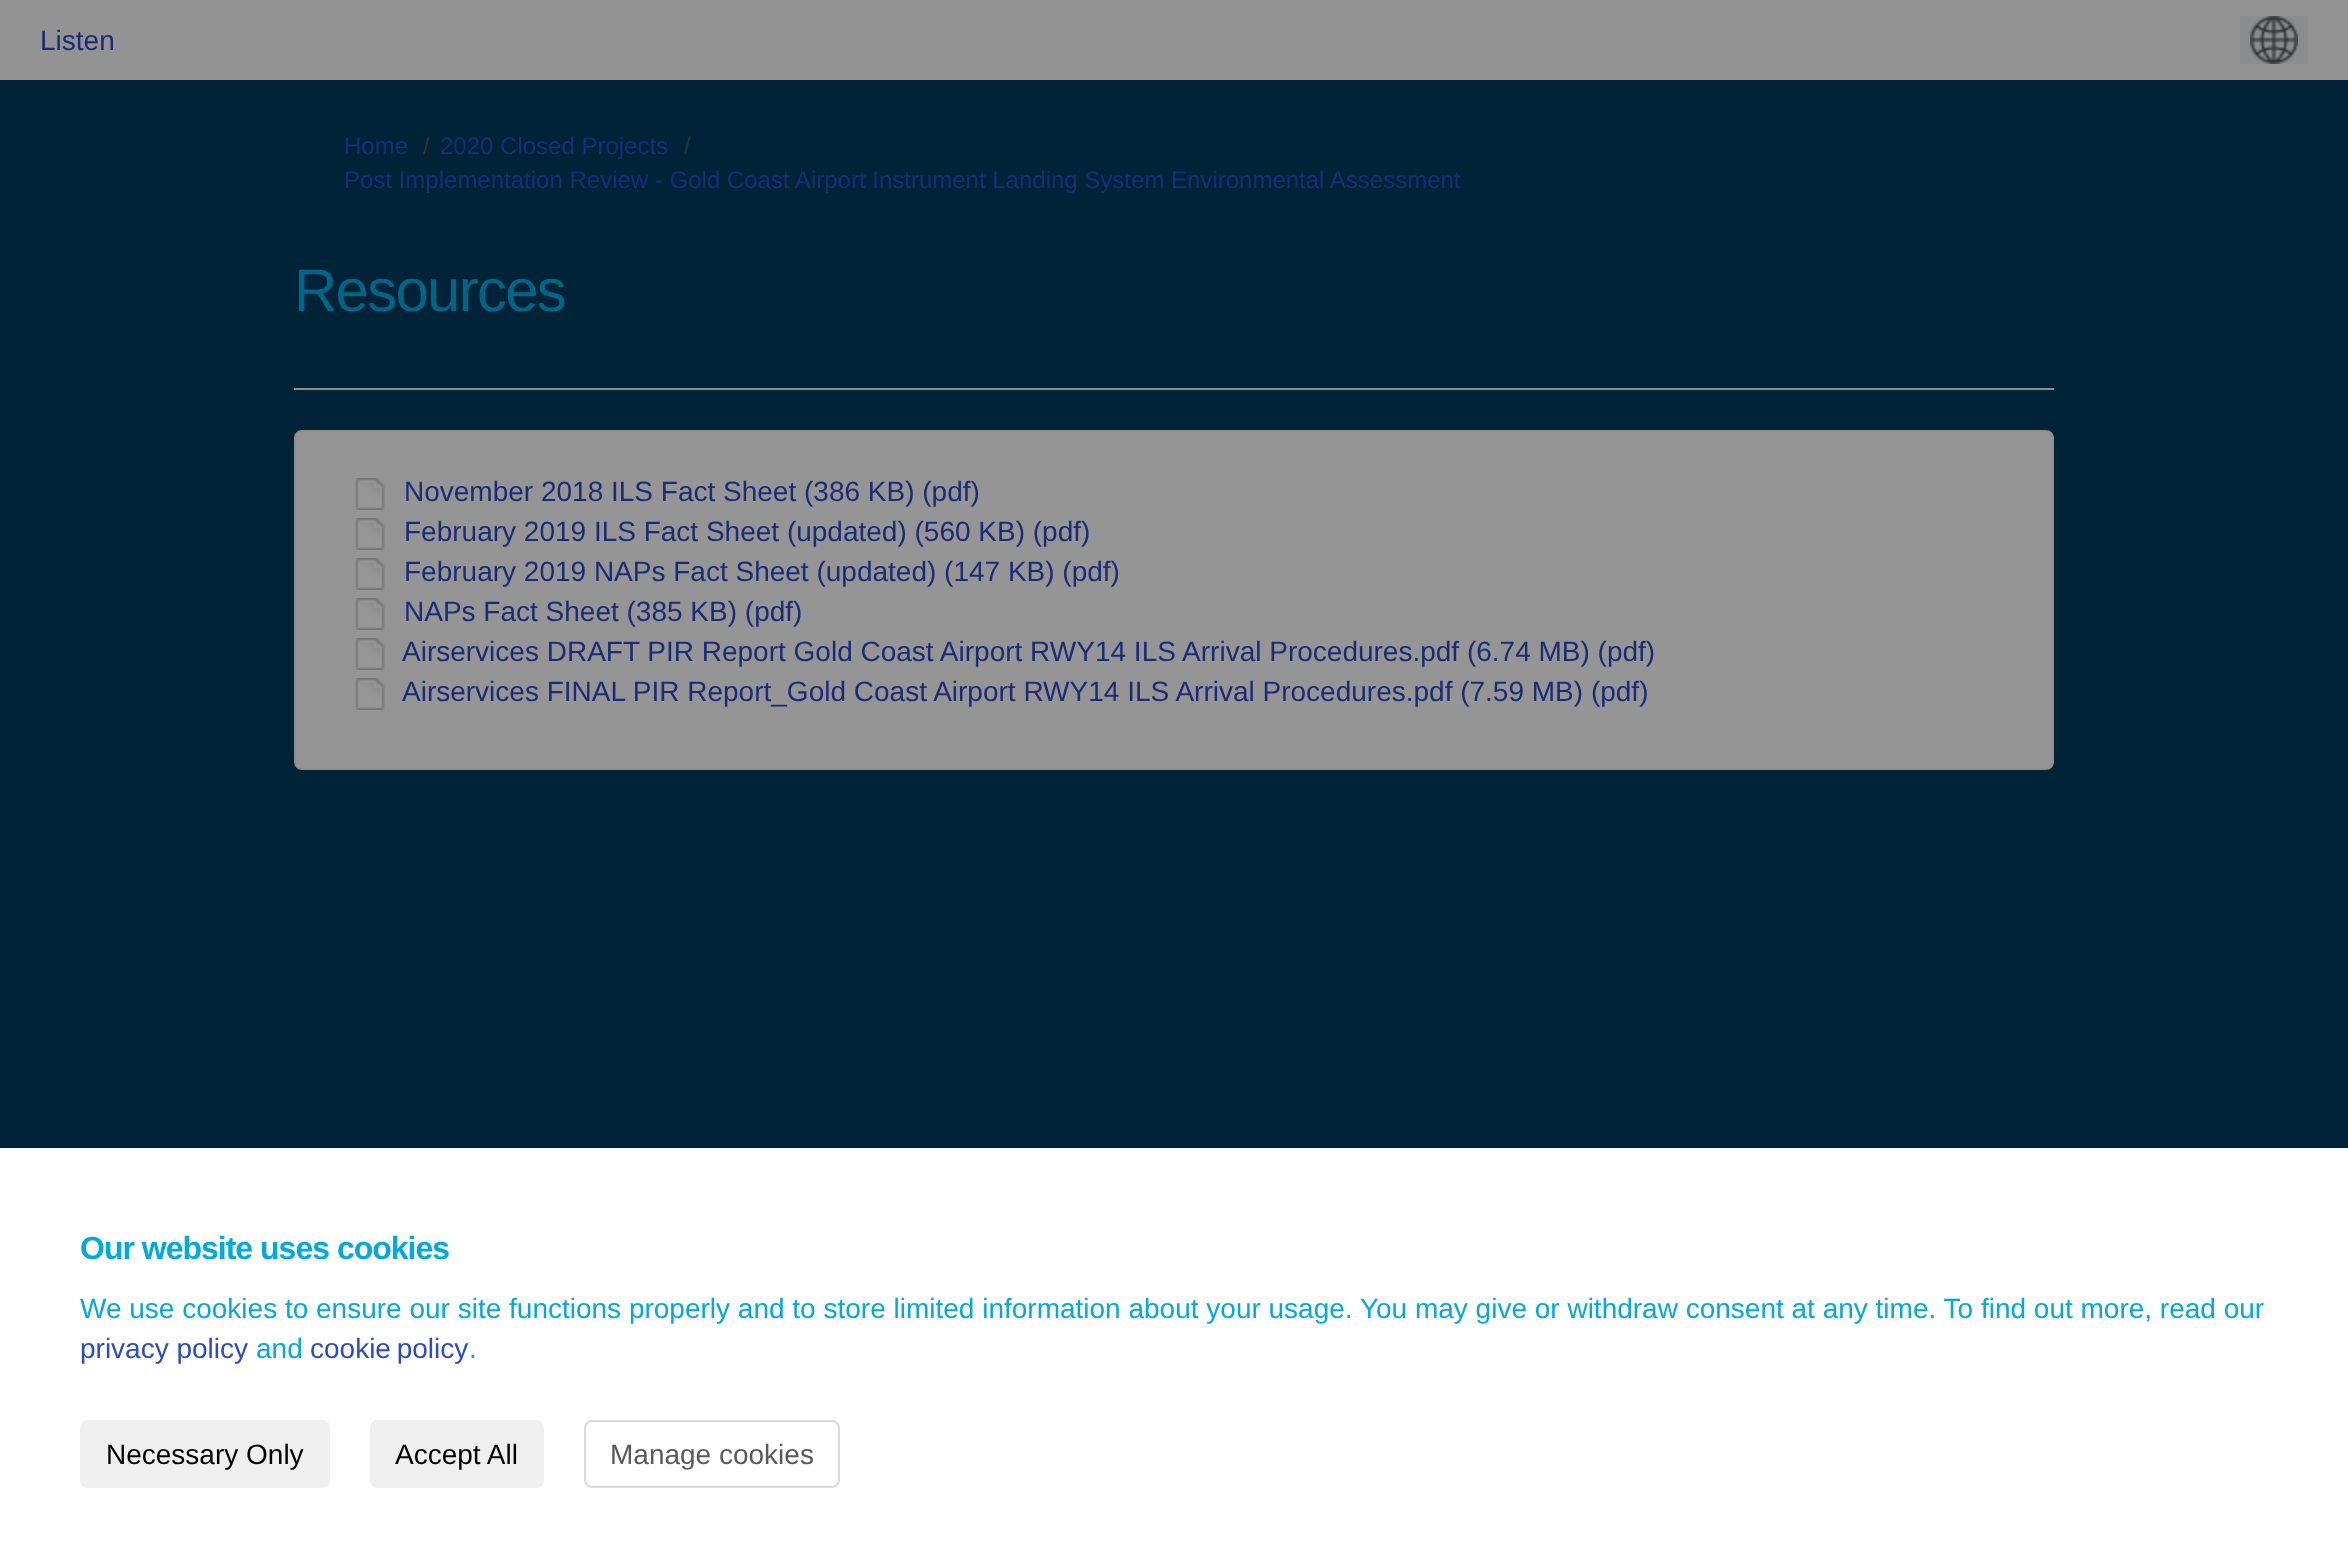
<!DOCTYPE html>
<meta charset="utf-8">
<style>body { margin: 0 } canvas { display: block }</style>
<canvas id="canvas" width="2348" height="1568"></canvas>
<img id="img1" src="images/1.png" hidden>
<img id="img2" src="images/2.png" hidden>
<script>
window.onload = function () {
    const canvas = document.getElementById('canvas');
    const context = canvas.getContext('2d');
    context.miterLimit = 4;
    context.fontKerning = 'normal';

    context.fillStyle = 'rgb(0, 35, 55)';
    context.fillRect(0, 0, 2348, 1568);
    context.fillStyle = 'rgb(147, 147, 147)';
    context.fillRect(0, 0, 2348, 80);
    context.fillStyle = 'rgb(139, 140, 142)';
    context.fillRect(2240, 16, 68, 48);
    context.drawImage(document.getElementById('img1'), 2250, 16, 48, 48);
    context.fillStyle = 'rgb(143, 143, 143)';
    context.fillRect(294, 388, 1760, 2);
    context.fillStyle = 'rgb(149, 149, 149)';
    context.beginPath();
    context.roundRect(295, 431, 1758, 338, 7);
    context.fill();
    context.strokeStyle = 'rgb(143, 143, 143)';
    context.lineWidth = 2;
    context.stroke();
    context.drawImage(document.getElementById('img2'), 355, 478, 30, 32);
    context.drawImage(document.getElementById('img2'), 355, 518, 30, 32);
    context.drawImage(document.getElementById('img2'), 355, 558, 30, 32);
    context.drawImage(document.getElementById('img2'), 355, 598, 30, 32);
    context.drawImage(document.getElementById('img2'), 355, 638, 30, 32);
    context.drawImage(document.getElementById('img2'), 355, 678, 30, 32);
    context.fillStyle = 'rgb(255, 255, 255)';
    context.fillRect(0, 1148, 2348, 420);
    context.fillStyle = 'rgb(239, 239, 239)';
    context.beginPath();
    context.roundRect(80, 1420, 250, 68, 8);
    context.fill();
    context.beginPath();
    context.roundRect(370, 1420, 174, 68, 8);
    context.fill();
    context.beginPath();
    context.roundRect(585, 1421, 254, 66, 7);
    context.strokeStyle = 'rgb(217, 217, 217)';
    context.stroke();
    context.font = '28px Liberation Sans';
    context.fillStyle = 'rgb(27, 44, 119)';
    context.fillText('Listen', 40, 50);
    context.font = '24px Liberation Sans';
    context.fillText('Home', 344, 154);
    context.fillStyle = 'rgb(51, 51, 51)';
    context.fillText('/', 423, 154);
    context.fillStyle = 'rgb(27, 44, 119)';
    context.fillText('2020 Closed Projects', 440, 154);
    context.fillStyle = 'rgb(51, 51, 51)';
    context.fillText('/', 684, 154);
    context.fillStyle = 'rgb(27, 44, 119)';
    context.fillText('Post Implementation Review - Gold Coast Airport Instrument Landing System Environmental Assessment', 344, 188);
    context.letterSpacing = '-1.75px';
    context.font = '60px Liberation Sans';
    context.fillStyle = 'rgb(0, 101, 134)';
    context.fillText('Resources', 294, 311);
    context.letterSpacing = '0px';
    context.font = '28px Liberation Sans';
    context.fillStyle = 'rgb(27, 44, 119)';
    context.fillText('November 2018 ILS Fact Sheet (386 KB) (pdf)', 404, 501);
    context.fillText('February 2019 ILS Fact Sheet (updated) (560 KB) (pdf)', 404, 541);
    context.fillText('February 2019 NAPs Fact Sheet (updated) (147 KB) (pdf)', 404, 581);
    context.fillText('NAPs Fact Sheet (385 KB) (pdf)', 404, 621);
    context.fillText('Airservices DRAFT PIR Report Gold Coast Airport RWY14 ILS Arrival Procedures.pdf (6.74 MB) (pdf)', 402, 661);
    context.fillText('Airservices FINAL PIR Report_Gold Coast Airport RWY14 ILS Arrival Procedures.pdf (7.59 MB) (pdf)', 402, 701);
    context.letterSpacing = '-1px';
    context.font = 'bold 32px Liberation Sans';
    context.fillStyle = 'rgb(0, 169, 224)';
    context.fillText('Our website uses cookies', 80, 1259);
    context.letterSpacing = '0px';
    context.font = '28px Liberation Sans';
    context.fillText('We use cookies to ensure our site functions properly and to store limited information about your usage. You may give or withdraw consent at any time. To find out more, read our', 80, 1318);
    context.fillStyle = 'rgb(45, 73, 199)';
    context.fillText('privacy policy', 80, 1358);
    context.fillStyle = 'rgb(0, 169, 224)';
    context.fillText('and', 256, 1358);
    context.wordSpacing = '-2px';
    context.fillStyle = 'rgb(45, 73, 199)';
    context.fillText('cookie policy', 310, 1358);
    context.wordSpacing = '0px';
    context.fillStyle = 'rgb(0, 169, 224)';
    context.fillText('.', 469, 1358);
    context.fillStyle = 'rgb(0, 0, 0)';
    context.fillText('Necessary Only', 106, 1464);
    context.fillText('Accept All', 395, 1464);
    context.fillStyle = 'rgb(89, 89, 89)';
    context.fillText('Manage cookies', 610, 1464);
};
</script>
